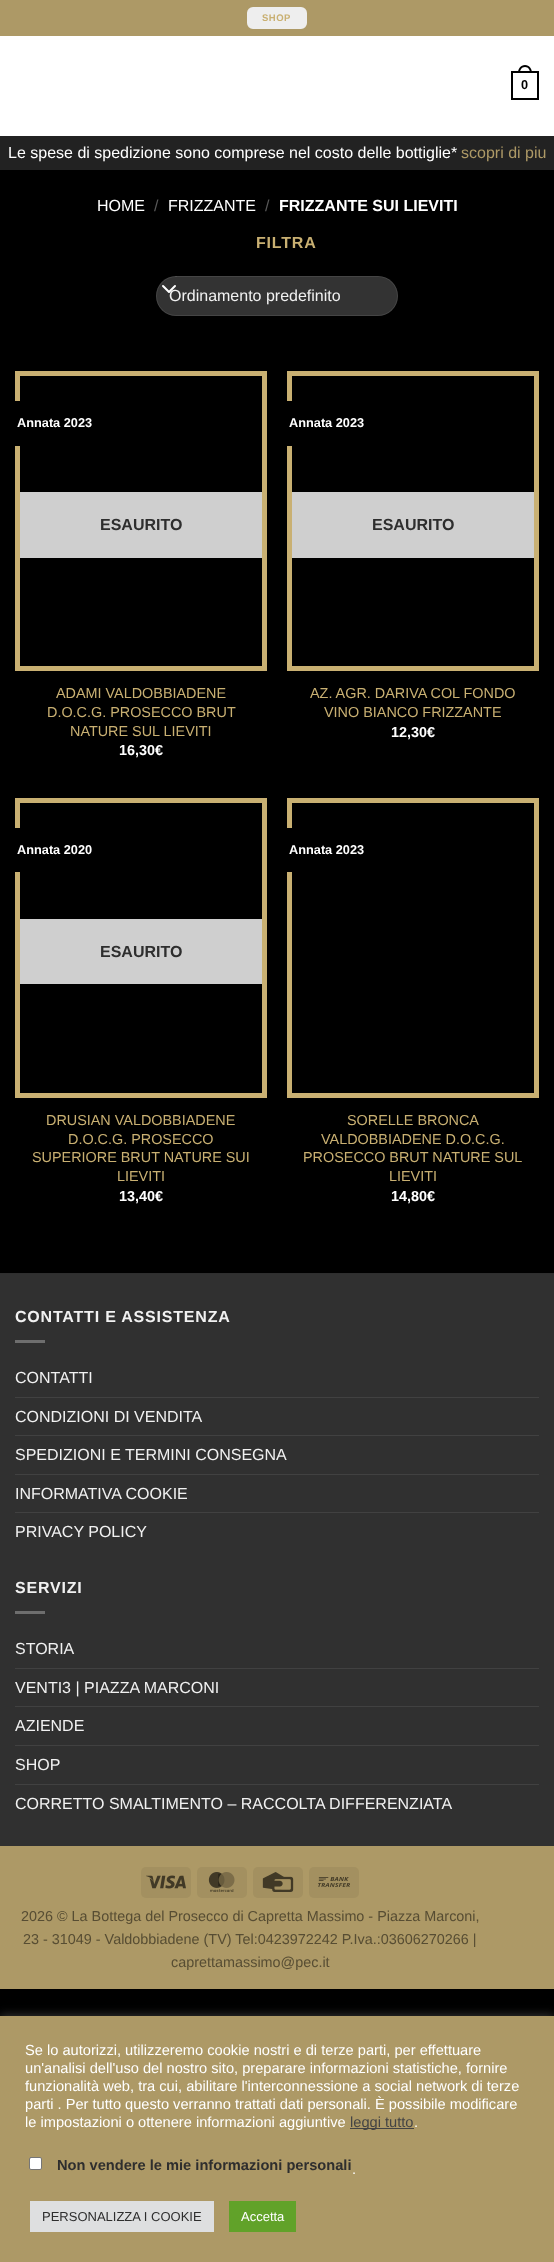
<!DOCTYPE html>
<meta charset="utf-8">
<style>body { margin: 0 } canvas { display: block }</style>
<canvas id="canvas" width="554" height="2262"></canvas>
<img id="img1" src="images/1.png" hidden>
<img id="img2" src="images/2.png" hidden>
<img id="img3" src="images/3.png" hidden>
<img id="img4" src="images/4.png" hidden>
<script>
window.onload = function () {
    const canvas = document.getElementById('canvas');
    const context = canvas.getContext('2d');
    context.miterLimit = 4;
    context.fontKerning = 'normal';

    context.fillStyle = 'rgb(0, 0, 0)';
    context.fillRect(0, 0, 554, 2262);
    context.fillStyle = 'rgb(173, 153, 102)';
    context.fillRect(0, 0, 554, 36);
    context.fillStyle = 'rgb(238, 238, 238)';
    context.beginPath();
    context.roundRect(246, 6, 62, 24, 7);
    context.fill();
    context.strokeStyle = 'rgb(173, 153, 102)';
    context.lineWidth = 2;
    context.stroke();
    context.fillStyle = 'rgb(255, 255, 255)';
    context.fillRect(0, 36, 554, 100);
    context.strokeStyle = 'rgb(0, 0, 0)';
    context.strokeRect(512, 72, 26, 27);
    context.fillStyle = 'rgb(0, 0, 0)';
    context.beginPath();
    context.moveTo(525, 65);
    context.bezierCurveTo(529.5, 65, 532, 69, 532, 73);
    context.lineTo(518, 73);
    context.bezierCurveTo(518, 69, 520.5, 65, 525, 65);
    context.closePath();
    context.moveTo(525, 67);
    context.bezierCurveTo(528.5, 67, 530, 70, 530, 73);
    context.lineTo(520, 73);
    context.bezierCurveTo(520, 70, 521.5, 67, 525, 67);
    context.closePath();
    context.fill('evenodd');
    context.fillStyle = 'rgb(34, 34, 34)';
    context.fillRect(0, 136, 554, 34);
    context.fillStyle = 'rgb(51, 51, 51)';
    context.beginPath();
    context.roundRect(156, 276, 242, 40, 20);
    context.fill();
    context.beginPath();
    context.moveTo(163, 286);
    context.lineTo(169, 292);
    context.lineTo(175, 286);
    context.strokeStyle = 'rgb(255, 255, 255)';
    context.lineCap = 'round';
    context.lineJoin = 'round';
    context.stroke();
    context.beginPath();
    context.roundRect(156.5, 276.5, 241, 39, 19.5);
    context.strokeStyle = 'rgba(255, 255, 255, 0.09)';
    context.lineWidth = 1;
    context.lineJoin = 'miter';
    context.stroke();
    context.strokeStyle = 'rgb(201, 176, 114)';
    context.lineWidth = 5;
    context.strokeRect(17.5, 373.5, 247, 295);
    context.fillStyle = 'rgb(0, 0, 0)';
    context.fillRect(15, 401, 5, 45);
    context.fillStyle = 'rgb(207, 207, 207)';
    context.fillRect(20, 492, 242, 66);
    context.strokeRect(289.5, 373.5, 247, 295);
    context.fillStyle = 'rgb(0, 0, 0)';
    context.fillRect(287, 401, 5, 45);
    context.fillStyle = 'rgb(207, 207, 207)';
    context.fillRect(292, 492, 242, 66);
    context.strokeRect(17.5, 800.5, 247, 295);
    context.fillStyle = 'rgb(0, 0, 0)';
    context.fillRect(15, 828, 5, 44);
    context.fillStyle = 'rgb(207, 207, 207)';
    context.fillRect(20, 919, 242, 65);
    context.strokeRect(289.5, 800.5, 247, 295);
    context.fillStyle = 'rgb(0, 0, 0)';
    context.fillRect(287, 828, 5, 44);
    context.fillStyle = 'rgb(48, 48, 48)';
    context.fillRect(0, 1274, 554, 572);
    context.fillStyle = 'rgb(46, 46, 46)';
    context.fillRect(0, 1273, 554, 1);
    context.fillStyle = 'rgb(110, 110, 110)';
    context.fillRect(15, 1340, 30, 3);
    context.fillStyle = 'rgb(65, 65, 65)';
    context.fillRect(15, 1397, 524, 1);
    context.fillRect(15, 1435, 524, 1);
    context.fillRect(15, 1474, 524, 1);
    context.fillRect(15, 1512, 524, 1);
    context.fillStyle = 'rgb(110, 110, 110)';
    context.fillRect(15, 1611, 30, 3);
    context.fillStyle = 'rgb(65, 65, 65)';
    context.fillRect(15, 1668, 524, 1);
    context.fillRect(15, 1706, 524, 1);
    context.fillRect(15, 1745, 524, 1);
    context.fillRect(15, 1784, 524, 1);
    context.fillStyle = 'rgb(173, 153, 102)';
    context.fillRect(0, 1846, 554, 143);
    context.fillStyle = 'rgb(163, 144, 96)';
    context.beginPath();
    context.roundRect(141, 1867, 50, 31, 5);
    context.fill();
    context.drawImage(document.getElementById('img1'), 146, 1875, 40, 14);
    context.beginPath();
    context.roundRect(197, 1867, 50, 31, 5);
    context.fill();
    context.drawImage(document.getElementById('img2'), 208, 1872, 27, 20);
    context.beginPath();
    context.roundRect(253, 1867, 50, 31, 5);
    context.fill();
    context.drawImage(document.getElementById('img3'), 262, 1872, 32, 20);
    context.beginPath();
    context.roundRect(309, 1867, 50, 31, 5);
    context.fill();
    context.drawImage(document.getElementById('img4'), 318, 1877, 32, 10);
    context.fillStyle = 'rgba(172, 171, 171, 0.3)';
    context.filter = 'blur(5px)';
    context.beginPath();
    context.rect(0, 2015, 554, 246);
    context.fill();
    context.filter = 'none';
    context.fillStyle = 'rgb(173, 153, 102)';
    context.fillRect(0, 2016, 554, 246);
    context.fillStyle = 'rgb(68, 68, 68)';
    context.fillRect(350, 2128, 64, 1);
    context.fillStyle = 'rgb(255, 255, 255)';
    context.beginPath();
    context.roundRect(29.5, 2157.5, 12, 12, 1.5);
    context.fill();
    context.strokeStyle = 'rgb(118, 118, 118)';
    context.lineWidth = 1;
    context.stroke();
    context.fillStyle = 'rgb(222, 223, 224)';
    context.fillRect(30, 2201, 184, 31);
    context.fillStyle = 'rgb(97, 162, 41)';
    context.fillRect(229, 2201, 67, 31);
    context.letterSpacing = '0.5px';
    context.font = 'bold 9.5px Liberation Sans';
    context.fillStyle = 'rgb(201, 176, 114)';
    context.fillText('SHOP', 262, 21);
    context.letterSpacing = '0px';
    context.font = 'bold 12.75px Liberation Sans';
    context.fillStyle = 'rgb(0, 0, 0)';
    context.fillText('0', 521, 89);
    context.font = '16px Liberation Sans';
    context.fillStyle = 'rgb(255, 255, 255)';
    context.fillText('Le spese di spedizione sono comprese nel costo delle bottiglie*', 8, 158);
    context.fillStyle = 'rgb(173, 153, 102)';
    context.fillText('scopri di piu', 461, 158);
    context.fillStyle = 'rgb(255, 255, 255)';
    context.fillText('HOME', 97, 211);
    context.fillStyle = 'rgb(89, 89, 89)';
    context.fillText('/', 154, 211);
    context.fillStyle = 'rgb(255, 255, 255)';
    context.fillText('FRIZZANTE', 168, 211);
    context.fillStyle = 'rgb(89, 89, 89)';
    context.fillText('/', 265, 211);
    context.font = 'bold 16px Liberation Sans';
    context.fillStyle = 'rgb(255, 255, 255)';
    context.fillText('FRIZZANTE SUI LIEVITI', 279, 211);
    context.letterSpacing = '0.8px';
    context.fillStyle = 'rgb(201, 176, 114)';
    context.fillText('FILTRA', 256, 248);
    context.letterSpacing = '0px';
    context.font = '16px Liberation Sans';
    context.fillStyle = 'rgb(241, 241, 241)';
    context.fillText('Ordinamento predefinito', 169, 301);
    context.font = 'bold 12.75px Liberation Sans';
    context.fillStyle = 'rgb(255, 255, 255)';
    context.fillText('Annata 2023', 17, 427);
    context.font = 'bold 16px Liberation Sans';
    context.fillStyle = 'rgb(46, 46, 46)';
    context.fillText('ESAURITO', 100, 530);
    context.font = '14.4px Liberation Sans';
    context.fillStyle = 'rgb(201, 176, 114)';
    context.fillText('ADAMI VALDOBBIADENE', 56, 698);
    context.fillText('D.O.C.G. PROSECCO BRUT', 47, 717);
    context.fillText('NATURE SUL LIEVITI', 70, 736);
    context.font = 'bold 14.4px Liberation Sans';
    context.fillStyle = 'rgb(255, 255, 255)';
    context.fillText('16,30€', 119, 755);
    context.font = 'bold 12.75px Liberation Sans';
    context.fillText('Annata 2023', 289, 427);
    context.font = 'bold 16px Liberation Sans';
    context.fillStyle = 'rgb(46, 46, 46)';
    context.fillText('ESAURITO', 372, 530);
    context.font = '14.4px Liberation Sans';
    context.fillStyle = 'rgb(201, 176, 114)';
    context.fillText('AZ. AGR. DARIVA COL FONDO', 310, 698);
    context.fillText('VINO BIANCO FRIZZANTE', 324, 717);
    context.font = 'bold 14.4px Liberation Sans';
    context.fillStyle = 'rgb(255, 255, 255)';
    context.fillText('12,30€', 391, 737);
    context.font = 'bold 12.75px Liberation Sans';
    context.fillText('Annata 2020', 17, 854);
    context.font = 'bold 16px Liberation Sans';
    context.fillStyle = 'rgb(46, 46, 46)';
    context.fillText('ESAURITO', 100, 957);
    context.font = '14.4px Liberation Sans';
    context.fillStyle = 'rgb(201, 176, 114)';
    context.fillText('DRUSIAN VALDOBBIADENE', 46, 1125);
    context.fillText('D.O.C.G. PROSECCO', 68, 1144);
    context.fillText('SUPERIORE BRUT NATURE SUI', 32, 1162);
    context.fillText('LIEVITI', 117, 1181);
    context.font = 'bold 14.4px Liberation Sans';
    context.fillStyle = 'rgb(255, 255, 255)';
    context.fillText('13,40€', 119, 1201);
    context.font = 'bold 12.75px Liberation Sans';
    context.fillText('Annata 2023', 289, 854);
    context.font = '14.4px Liberation Sans';
    context.fillStyle = 'rgb(201, 176, 114)';
    context.fillText('SORELLE BRONCA', 347, 1125);
    context.fillText('VALDOBBIADENE D.O.C.G.', 321, 1144);
    context.fillText('PROSECCO BRUT NATURE SUL', 303, 1162);
    context.fillText('LIEVITI', 389, 1181);
    context.font = 'bold 14.4px Liberation Sans';
    context.fillStyle = 'rgb(255, 255, 255)';
    context.fillText('14,80€', 391, 1201);
    context.letterSpacing = '0.8px';
    context.font = 'bold 16px Liberation Sans';
    context.fillStyle = 'rgb(241, 241, 241)';
    context.fillText('CONTATTI E ASSISTENZA', 15, 1322);
    context.letterSpacing = '0px';
    context.font = '16px Liberation Sans';
    context.fillText('CONTATTI', 15, 1383);
    context.fillText('CONDIZIONI DI VENDITA', 15, 1422);
    context.fillText('SPEDIZIONI E TERMINI CONSEGNA', 15, 1460);
    context.fillText('INFORMATIVA COOKIE', 15, 1499);
    context.fillText('PRIVACY POLICY', 15, 1537);
    context.letterSpacing = '0.8px';
    context.font = 'bold 16px Liberation Sans';
    context.fillText('SERVIZI', 15, 1593);
    context.letterSpacing = '0px';
    context.font = '16px Liberation Sans';
    context.fillText('STORIA', 15, 1654);
    context.fillText('VENTI3 | PIAZZA MARCONI', 15, 1693);
    context.fillText('AZIENDE', 15, 1731);
    context.fillText('SHOP', 15, 1770);
    context.fillText('CORRETTO SMALTIMENTO – RACCOLTA DIFFERENZIATA', 15, 1809);
    context.font = '14.4px Liberation Sans';
    context.fillStyle = 'rgb(87, 77, 51)';
    context.fillText('2026 © La Bottega del Prosecco di Capretta Massimo - Piazza Marconi,', 21, 1921);
    context.fillText('23 - 31049 - Valdobbiadene (TV) Tel:0423972242 P.Iva.:03606270266 |', 23, 1944);
    context.fillText('caprettamassimo@pec.it', 171, 1967);
    context.font = '14.65px Liberation Sans';
    context.fillStyle = 'rgb(255, 255, 255)';
    context.fillText('Se lo autorizzi, utilizzeremo cookie nostri e di terze parti, per effettuare', 25, 2055);
    context.fillText('un\'analisi dell\'uso del nostro sito, preparare informazioni statistiche, fornire', 25, 2073);
    context.fillText('funzionalità web, tra cui, abilitare l\'interconnessione a social network di terze', 25, 2091);
    context.fillText('parti . Per tutto questo verranno trattati dati personali. È possibile modificare', 25, 2109);
    context.fillText('le impostazioni o ottenere informazioni aggiuntive', 25, 2127);
    context.fillStyle = 'rgb(68, 68, 68)';
    context.fillText('leggi tutto', 350, 2127);
    context.fillStyle = 'rgb(255, 255, 255)';
    context.fillText('.', 414, 2127);
    context.font = 'bold 14.65px Liberation Sans';
    context.fillStyle = 'rgb(46, 46, 46)';
    context.fillText('Non vendere le mie informazioni personali', 57, 2170);
    context.font = '14.65px Liberation Sans';
    context.fillStyle = 'rgb(255, 255, 255)';
    context.fillText('.', 352, 2174);
    context.font = '13px Liberation Sans';
    context.fillStyle = 'rgb(46, 46, 46)';
    context.fillText('PERSONALIZZA I COOKIE', 42, 2221);
    context.fillStyle = 'rgb(255, 255, 255)';
    context.fillText('Accetta', 241, 2221);
};
</script>
